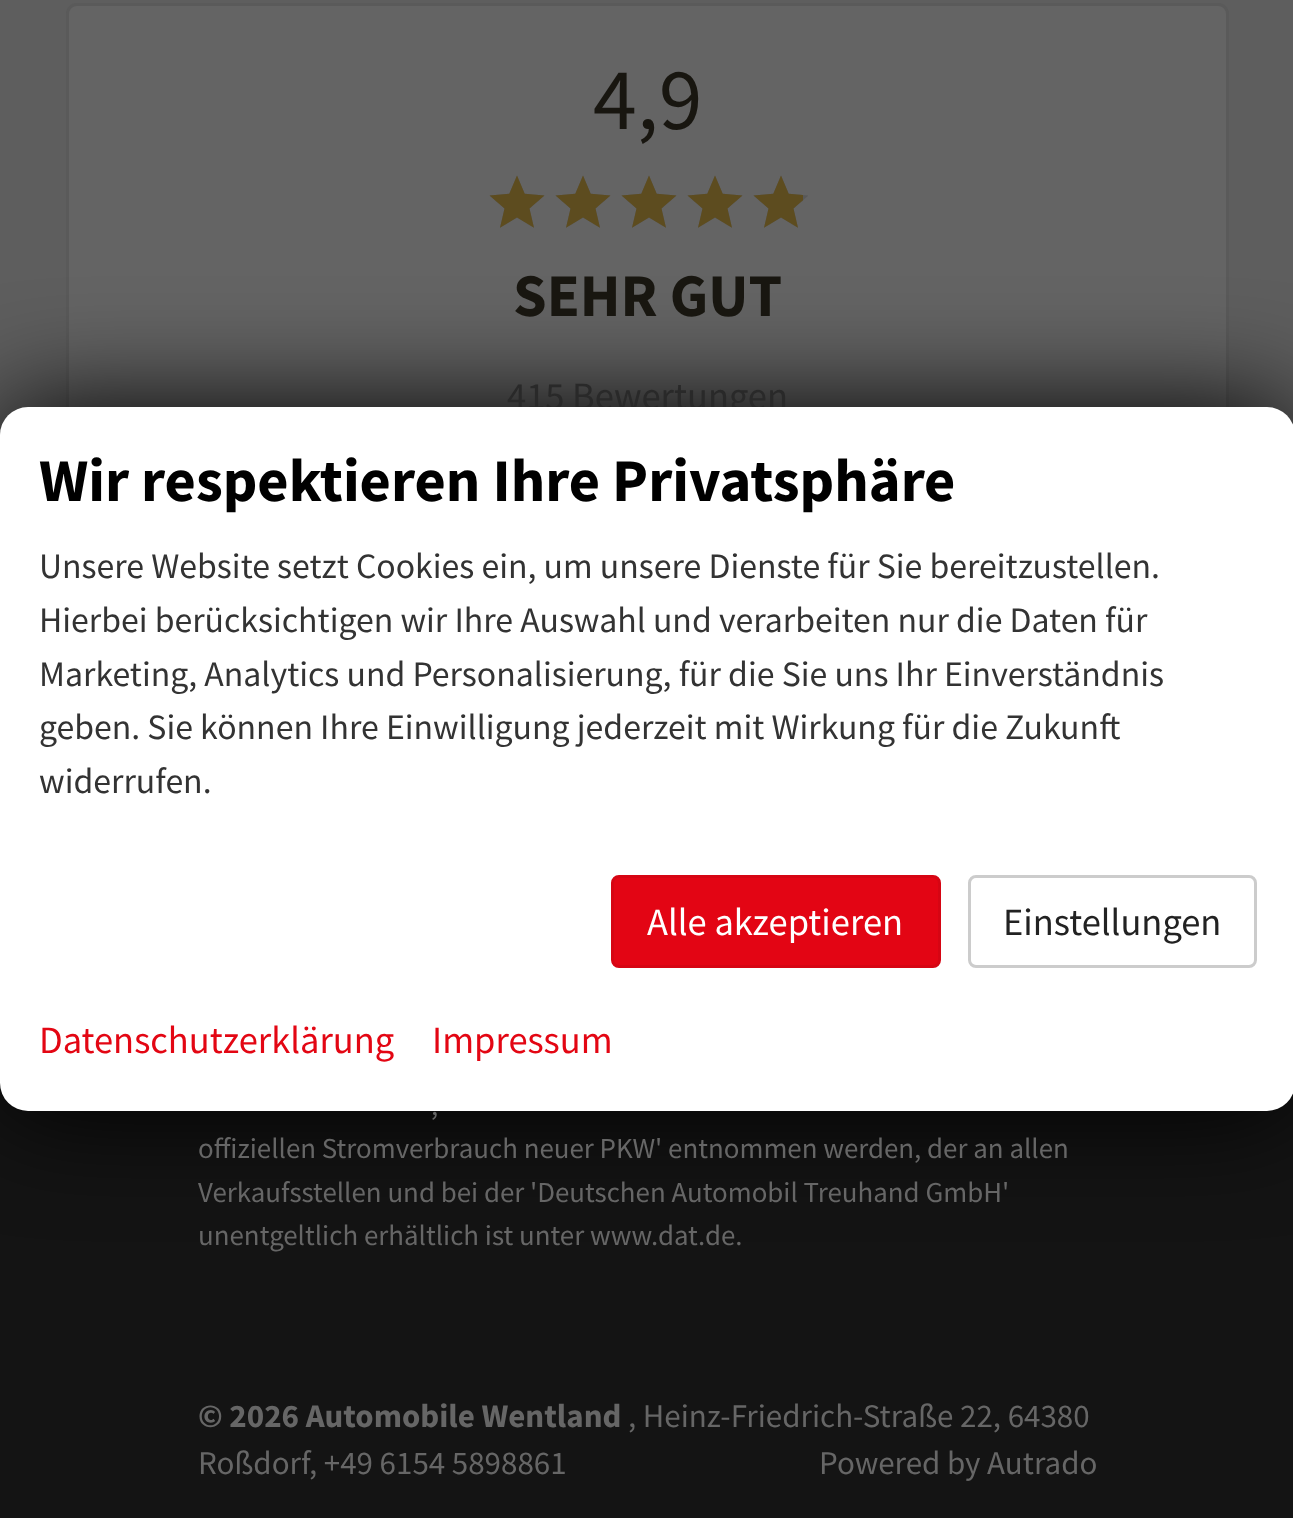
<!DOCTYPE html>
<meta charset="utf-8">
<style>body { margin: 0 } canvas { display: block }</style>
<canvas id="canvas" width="1293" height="1518"></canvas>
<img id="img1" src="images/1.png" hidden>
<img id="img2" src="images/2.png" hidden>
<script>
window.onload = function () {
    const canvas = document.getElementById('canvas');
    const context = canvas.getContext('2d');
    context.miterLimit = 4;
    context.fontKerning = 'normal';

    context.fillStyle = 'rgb(94, 94, 94)';
    context.fillRect(0, 0, 1293, 1518);
    context.fillStyle = 'rgb(100, 100, 100)';
    context.beginPath();
    context.roundRect(67.5, 4.5, 1160, 525, 9.5);
    context.fill();
    context.strokeStyle = 'rgb(90, 90, 90)';
    context.lineWidth = 3;
    context.stroke();
    context.drawImage(document.getElementById('img1'), 490, 176, 318, 52);
    context.drawImage(document.getElementById('img2'), 489, 175, 314, 53);
    context.fillStyle = 'rgb(20, 20, 20)';
    context.fillRect(0, 1083, 1293, 435);
    context.fillStyle = 'rgb(0, 0, 0)';
    context.filter = 'blur(55px)';
    context.beginPath();
    context.roundRect(0, 407, 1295, 704, 28);
    context.fill();
    context.filter = 'none';
    context.font = '88px Source Sans Pro';
    context.fillStyle = 'rgb(24, 22, 16)';
    context.fillText('4,9', 593, 129);
    context.font = 'bold 60.5px Source Sans Pro';
    context.fillText('SEHR GUT', 513, 316);
    context.font = '38.5px Source Sans Pro';
    context.fillStyle = 'rgb(41, 41, 41)';
    context.fillText('415 Bewertungen', 507, 409);
    context.font = '28.9px Source Sans Pro';
    context.fillStyle = 'rgb(102, 102, 102)';
    context.fillText(',', 431, 1115);
    context.fillText('offiziellen Stromverbrauch neuer PKW\' entnommen werden, der an allen', 198, 1158);
    context.fillText('Verkaufsstellen und bei der \'Deutschen Automobil Treuhand GmbH\'', 198, 1202);
    context.fillText('unentgeltlich erhältlich ist unter www.dat.de.', 198, 1245);
    context.font = 'bold 33px Source Sans Pro';
    context.fillText('© 2026 Automobile Wentland', 198, 1427);
    context.font = '33px Source Sans Pro';
    context.fillText(', Heinz-Friedrich-Straße 22, 64380', 628, 1427);
    context.fillText('Roßdorf, +49 6154 5898861', 198, 1474);
    context.fillText('Powered by Autrado', 819, 1474);
    context.fillStyle = 'rgb(255, 255, 255)';
    context.beginPath();
    context.roundRect(0, 407, 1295, 704, 28);
    context.fill();
    context.font = 'bold 60.5px Source Sans Pro';
    context.fillStyle = 'rgb(0, 0, 0)';
    context.fillText('Wir respektieren Ihre Privatsphäre', 39, 501);
    context.font = '35.75px Source Sans Pro';
    context.fillStyle = 'rgb(51, 51, 51)';
    context.fillText('Unsere Website setzt Cookies ein, um unsere Dienste für Sie bereitzustellen.', 39, 578);
    context.fillText('Hierbei berücksichtigen wir Ihre Auswahl und verarbeiten nur die Daten für', 39, 632);
    context.fillText('Marketing, Analytics und Personalisierung, für die Sie uns Ihr Einverständnis', 39, 686);
    context.fillText('geben. Sie können Ihre Einwilligung jederzeit mit Wirkung für die Zukunft', 39, 739);
    context.fillText('widerrufen.', 39, 793);
    context.fillStyle = 'rgb(227, 5, 20)';
    context.beginPath();
    context.roundRect(612.5, 876.5, 327, 90, 6.5);
    context.fill();
    context.strokeStyle = 'rgb(214, 5, 19)';
    context.stroke();
    context.font = '38.5px Source Sans Pro';
    context.fillStyle = 'rgb(255, 255, 255)';
    context.fillText('Alle akzeptieren', 647, 935);
    context.beginPath();
    context.roundRect(969.5, 876.5, 286, 90, 6.5);
    context.strokeStyle = 'rgb(204, 204, 204)';
    context.stroke();
    context.fillStyle = 'rgb(34, 34, 34)';
    context.fillText('Einstellungen', 1003, 935);
    context.fillStyle = 'rgb(227, 6, 19)';
    context.fillText('Datenschutzerklärung', 39, 1053);
    context.fillText('Impressum', 432, 1053);
};
</script>
